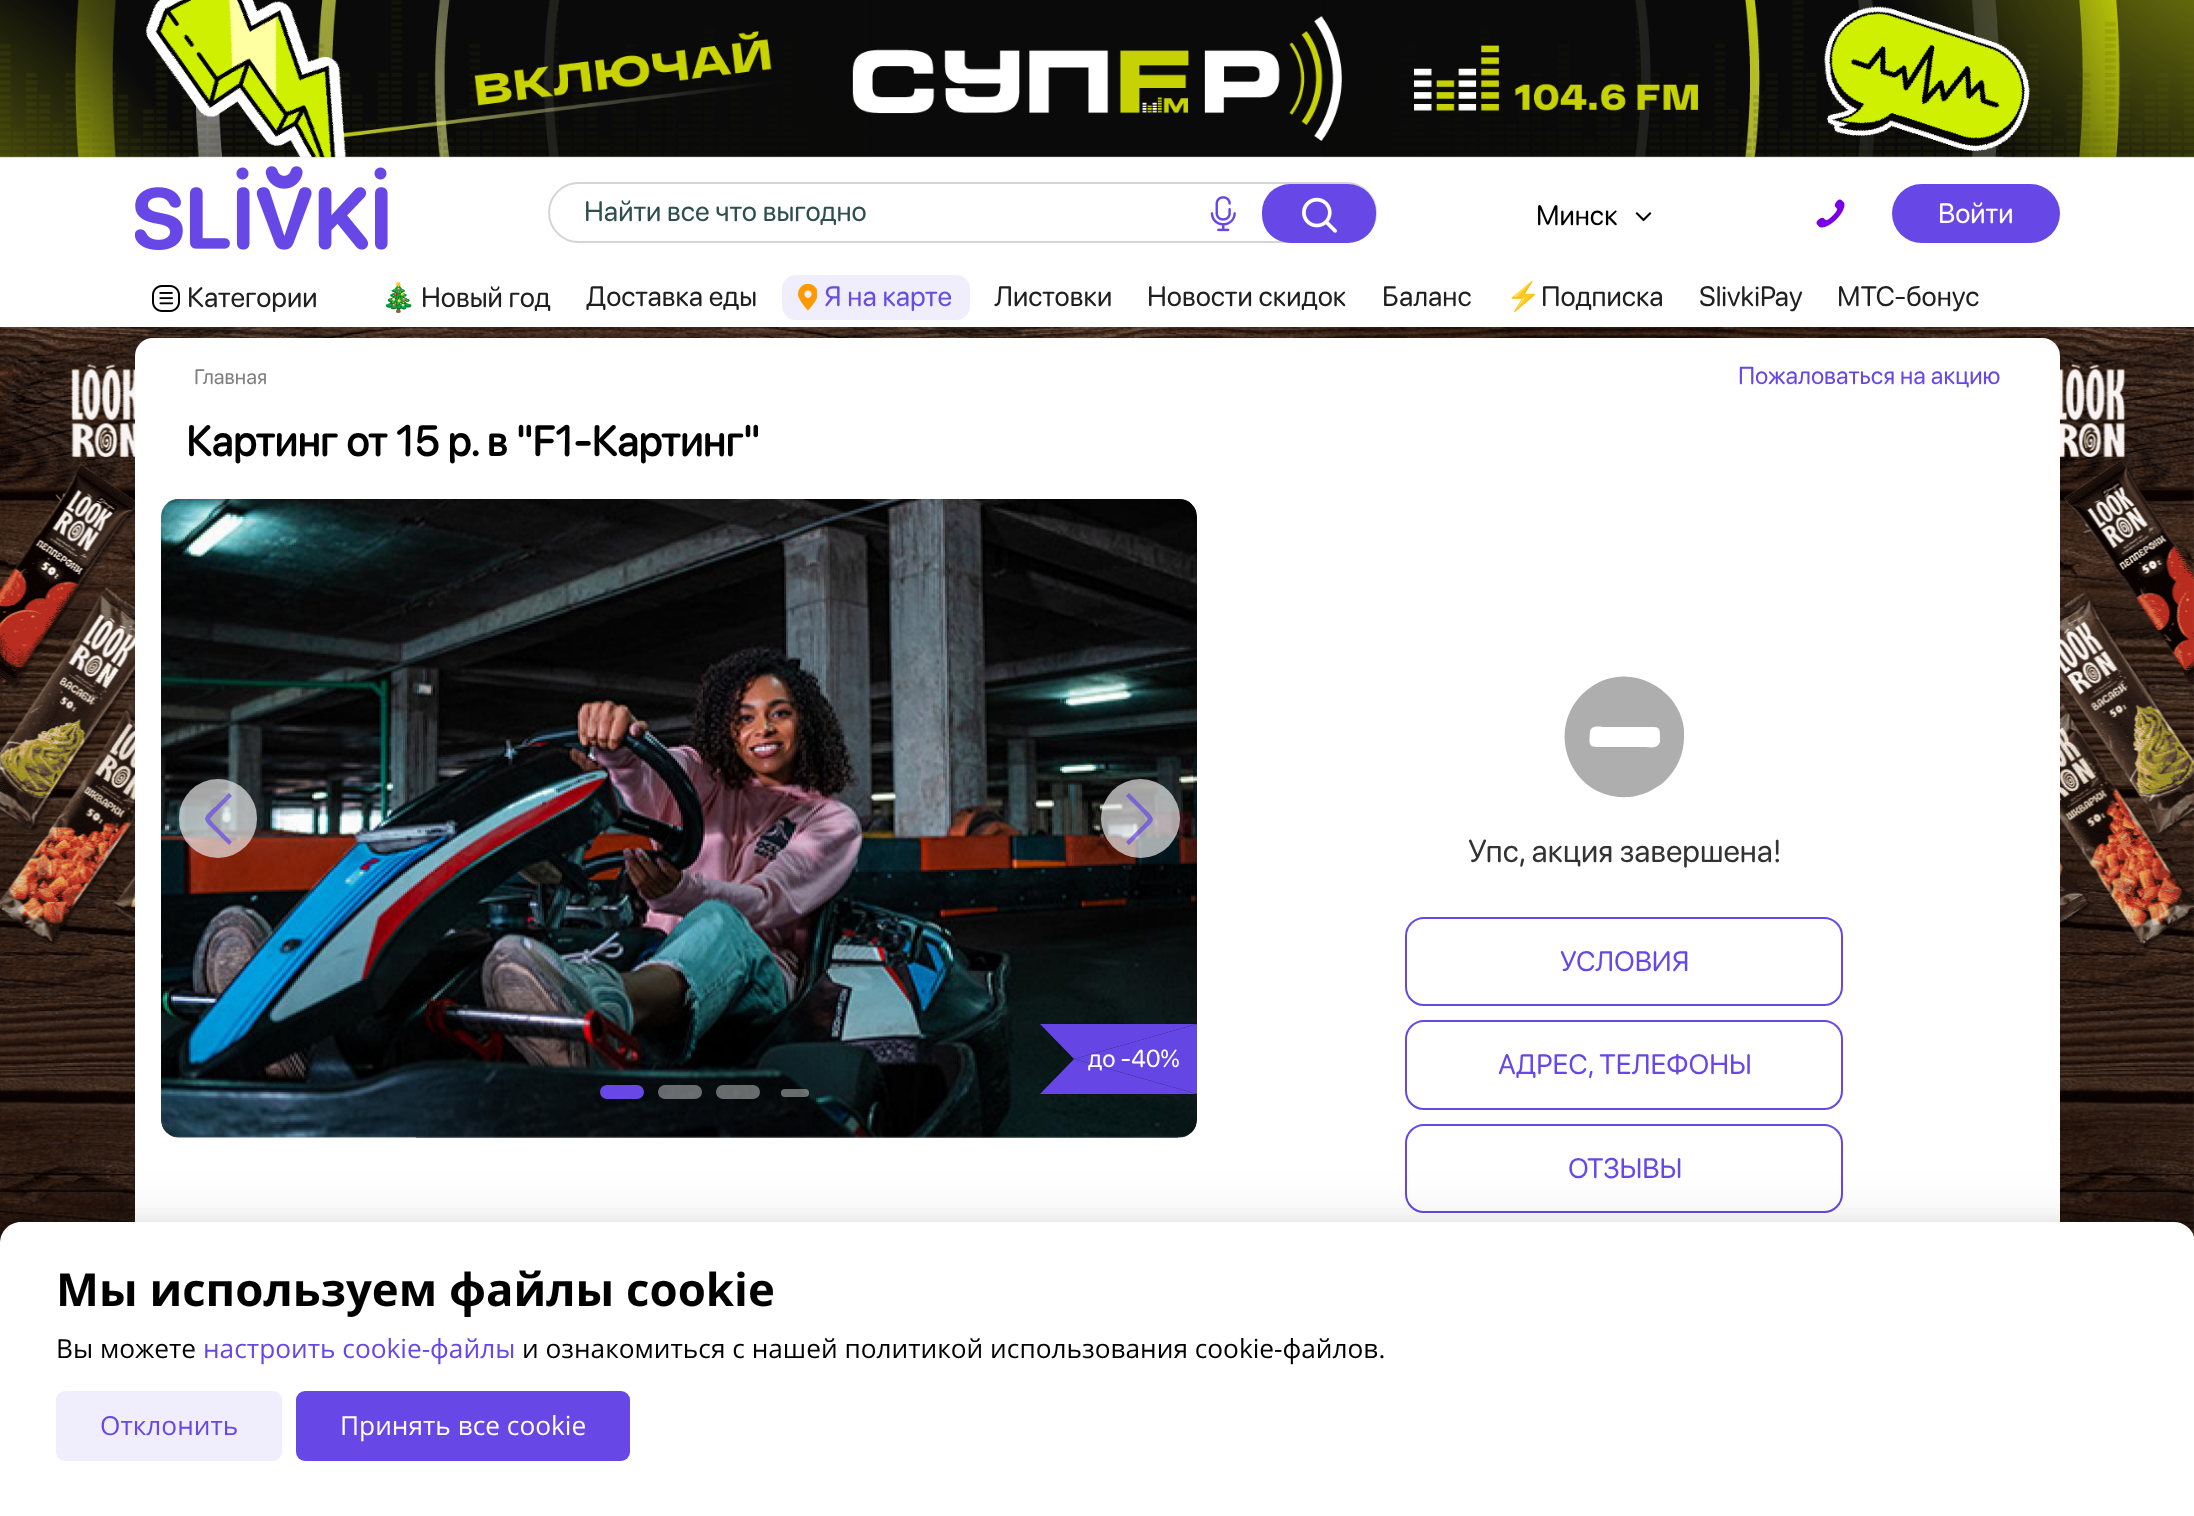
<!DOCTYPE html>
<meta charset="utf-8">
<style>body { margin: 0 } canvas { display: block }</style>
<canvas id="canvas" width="2194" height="1516"></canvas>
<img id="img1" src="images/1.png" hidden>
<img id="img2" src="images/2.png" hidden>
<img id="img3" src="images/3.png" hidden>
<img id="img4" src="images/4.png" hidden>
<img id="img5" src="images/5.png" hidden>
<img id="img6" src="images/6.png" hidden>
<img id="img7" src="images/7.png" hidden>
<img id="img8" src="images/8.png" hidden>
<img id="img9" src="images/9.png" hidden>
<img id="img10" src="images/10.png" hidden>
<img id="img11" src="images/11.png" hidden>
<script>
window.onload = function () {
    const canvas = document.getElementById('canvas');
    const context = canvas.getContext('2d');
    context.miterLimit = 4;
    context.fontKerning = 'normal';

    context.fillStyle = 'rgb(255, 255, 255)';
    context.fillRect(0, 0, 2194, 1516);
    context.drawImage(document.getElementById('img1'), 0, 0, 2194, 158);
    context.drawImage(document.getElementById('img2'), 135, 166, 253, 84);
    context.beginPath();
    context.roundRect(549, 183, 827, 59, 29.5);
    context.strokeStyle = 'rgb(213, 213, 213)';
    context.lineWidth = 2;
    context.stroke();
    context.drawImage(document.getElementById('img3'), 1210, 196, 26, 36);
    context.fillStyle = 'rgb(103, 71, 229)';
    context.beginPath();
    context.roundRect(1262, 184, 114, 59, 28);
    context.fill();
    context.drawImage(document.getElementById('img4'), 1302, 197, 35, 36);
    context.drawImage(document.getElementById('img5'), 1635, 212, 17, 10);
    context.drawImage(document.getElementById('img6'), 1816, 199, 29, 29);
    context.beginPath();
    context.roundRect(1892, 184, 168, 59, 29.5);
    context.fill();
    context.drawImage(document.getElementById('img7'), 152, 285, 28, 27);
    context.fillStyle = 'rgb(240, 237, 252)';
    context.beginPath();
    context.roundRect(782, 275, 188, 45, 14);
    context.fill();
    context.drawImage(document.getElementById('img8'), 798, 284, 19, 27);
    context.drawImage(document.getElementById('img9'), 0, 327, 2194, 916);
    context.fillStyle = 'rgb(255, 255, 255)';
    context.beginPath();
    context.roundRect(135, 338, 1925, 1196, 18);
    context.fill();
    context.drawImage(document.getElementById('img10'), 161, 499, 1036, 639);
    context.drawImage(document.getElementById('img11'), 161, 499, 1036, 639);
    context.fillStyle = 'rgba(232, 232, 232, 0.7)';
    context.beginPath();
    context.roundRect(179, 779, 78, 79, 39);
    context.fill();
    context.fillStyle = 'rgba(103, 71, 229, 0.7)';
    context.beginPath();
    context.moveTo(229, 845);
    context.lineTo(211, 827);
    context.bezierCurveTo(201, 818, 205, 816, 215, 807);
    context.lineTo(229, 793);
    context.lineTo(232, 796);
    context.lineTo(214, 814);
    context.bezierCurveTo(209, 820, 209, 818, 214, 824);
    context.lineTo(232, 842);
    context.closePath();
    context.fill();
    context.fillStyle = 'rgba(232, 232, 232, 0.7)';
    context.beginPath();
    context.arc(1140.5, 818.5, 39.5, 0, 2 * Math.PI);
    context.fill();
    context.fillStyle = 'rgba(103, 71, 229, 0.7)';
    context.beginPath();
    context.moveTo(1129, 793);
    context.lineTo(1147, 811);
    context.bezierCurveTo(1157, 820, 1153, 822, 1143, 831);
    context.lineTo(1129, 845);
    context.lineTo(1126, 842);
    context.lineTo(1144, 824);
    context.bezierCurveTo(1149, 818, 1149, 820, 1144, 814);
    context.lineTo(1126, 796);
    context.closePath();
    context.fill();
    context.fillStyle = 'rgb(103, 71, 229)';
    context.beginPath();
    context.roundRect(600, 1085, 44, 14, 7);
    context.fill();
    context.fillStyle = 'rgba(255, 255, 255, 0.4)';
    context.beginPath();
    context.roundRect(658, 1085, 44, 14, 7);
    context.fill();
    context.beginPath();
    context.roundRect(716, 1085, 44, 14, 7);
    context.fill();
    context.beginPath();
    context.roundRect(781, 1089, 28, 8, 4);
    context.fill();
    context.fillStyle = 'rgb(101, 70, 229)';
    context.beginPath();
    context.moveTo(1040, 1024);
    context.lineTo(1197, 1024);
    context.lineTo(1074, 1059);
    context.closePath();
    context.fill();
    context.fillStyle = 'rgb(100, 70, 229)';
    context.beginPath();
    context.moveTo(1197, 1024);
    context.lineTo(1197, 1094);
    context.lineTo(1074, 1059);
    context.closePath();
    context.fill();
    context.fillStyle = 'rgb(102, 70, 229)';
    context.beginPath();
    context.moveTo(1197, 1094);
    context.lineTo(1040, 1094);
    context.lineTo(1074, 1059);
    context.closePath();
    context.fill();
    context.fillStyle = 'rgb(174, 174, 174)';
    context.beginPath();
    context.moveTo(1660, 742);
    context.bezierCurveTo(1660, 726, 1661, 727, 1645, 727);
    context.lineTo(1604, 727);
    context.bezierCurveTo(1602, 727, 1594, 725, 1591, 729);
    context.lineTo(1590, 731);
    context.bezierCurveTo(1589, 747, 1588, 747, 1604, 747);
    context.lineTo(1645, 747);
    context.bezierCurveTo(1648, 747, 1656, 749, 1659, 744);
    context.closePath();
    context.moveTo(1684, 737);
    context.bezierCurveTo(1684, 754, 1677, 770, 1664, 782);
    context.bezierCurveTo(1654, 790, 1642, 796, 1629, 797);
    context.bezierCurveTo(1567, 801, 1541, 722, 1591, 687);
    context.bezierCurveTo(1618, 668, 1652, 676, 1672, 700);
    context.bezierCurveTo(1680, 711, 1685, 723, 1684, 737);
    context.closePath();
    context.fill();
    context.beginPath();
    context.roundRect(1406, 918, 436, 87, 18);
    context.strokeStyle = 'rgb(103, 71, 229)';
    context.stroke();
    context.beginPath();
    context.roundRect(1406, 1021, 436, 88, 18);
    context.stroke();
    context.beginPath();
    context.roundRect(1406, 1125, 436, 87, 18);
    context.stroke();
    context.fillStyle = 'rgba(0, 0, 0, 0.12)';
    context.filter = 'blur(10.5px)';
    context.beginPath();
    context.roundRect(0, 1229, 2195, 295, 21);
    context.fill();
    context.filter = 'none';
    context.fillStyle = 'rgba(0, 0, 0, 0.32)';
    context.filter = 'blur(42px)';
    context.beginPath();
    context.roundRect(0, 1264, 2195, 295, 21);
    context.fill();
    context.filter = 'none';
    context.fillStyle = 'rgb(255, 255, 255)';
    context.beginPath();
    context.moveTo(21, 1222);
    context.lineTo(2174, 1222);
    context.bezierCurveTo(2185.5, 1222, 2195, 1231.5, 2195, 1243);
    context.lineTo(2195, 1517);
    context.lineTo(0, 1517);
    context.lineTo(0, 1243);
    context.bezierCurveTo(0, 1231.5, 9.5, 1222, 21, 1222);
    context.closePath();
    context.fill();
    context.fillStyle = 'rgb(240, 237, 252)';
    context.beginPath();
    context.roundRect(56, 1391, 226, 70, 9);
    context.fill();
    context.fillStyle = 'rgb(103, 71, 229)';
    context.beginPath();
    context.roundRect(296, 1391, 334, 70, 9);
    context.fill();
    context.font = '200 28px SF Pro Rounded';
    context.fillStyle = 'rgb(47, 79, 79)';
    context.fillText('Найти все что выгодно', 584, 221);
    context.fillStyle = 'rgb(0, 0, 0)';
    context.fillText('Минск', 1536, 225);
    context.fillStyle = 'rgb(255, 255, 255)';
    context.fillText('Войти', 1938, 223);
    context.fillStyle = 'rgb(32, 32, 32)';
    context.fillText('Категории', 187, 307);
    context.font = '28px Noto Color Emoji';
    context.fillText('🎄', 381, 307);
    context.font = '200 28px SF Pro Rounded';
    context.fillText('Новый год', 421, 307);
    context.fillText('Доставка еды', 586, 306);
    context.fillStyle = 'rgb(103, 78, 225)';
    context.fillText('Я на карте', 824, 306);
    context.fillStyle = 'rgb(32, 32, 32)';
    context.fillText('Листовки', 994, 306);
    context.fillText('Новости скидок', 1147, 306);
    context.fillText('Баланс', 1382, 306);
    context.font = '28px Noto Color Emoji';
    context.fillText('⚡️', 1506, 306);
    context.font = '200 28px SF Pro Rounded';
    context.fillText('Подписка', 1541, 306);
    context.fillText('SlivkiPay', 1699, 306);
    context.fillText('МТС-бонус', 1837, 306);
    context.font = '200 21px SF Pro Rounded';
    context.fillStyle = 'rgb(128, 128, 128)';
    context.fillText('Главная', 194, 384);
    context.font = '200 24.5px SF Pro Rounded';
    context.fillStyle = 'rgb(103, 71, 229)';
    context.fillText('Пожаловаться на акцию', 1738, 384);
    context.font = 'bold 42px SF Pro Rounded';
    context.fillStyle = 'rgb(0, 0, 0)';
    context.fillText('Картинг от 15 р. в "F1-Картинг"', 186, 456);
    context.font = '200 24.5px SF Pro Rounded';
    context.fillStyle = 'rgb(255, 255, 255)';
    context.fillText('до -40%', 1088, 1067);
    context.font = '200 31.5px "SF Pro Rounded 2"';
    context.fillStyle = 'rgb(51, 51, 51)';
    context.fillText('Упс, акция завершена!', 1468, 862);
    context.font = '200 28px "SF Pro Rounded 2"';
    context.fillStyle = 'rgb(103, 71, 229)';
    context.fillText('УСЛОВИЯ', 1560, 971);
    context.fillText('АДРЕС, ТЕЛЕФОНЫ', 1498, 1074);
    context.fillText('ОТЗЫВЫ', 1568, 1178);
    context.font = 'bold 45.5px Open Sans';
    context.fillStyle = 'rgb(0, 0, 0)';
    context.fillText('Мы используем файлы cookie', 56, 1306);
    context.font = '26.25px Open Sans';
    context.fillText('Вы можете', 56, 1358);
    context.fillStyle = 'rgb(103, 71, 229)';
    context.fillText('настроить cookie-файлы', 203, 1358);
    context.fillStyle = 'rgb(0, 0, 0)';
    context.fillText('и ознакомиться с нашей политикой использования cookie-файлов.', 522, 1358);
    context.fillStyle = 'rgb(103, 71, 229)';
    context.fillText('Отклонить', 100, 1435);
    context.fillStyle = 'rgb(255, 255, 255)';
    context.fillText('Принять все cookie', 340, 1435);
};
</script>
